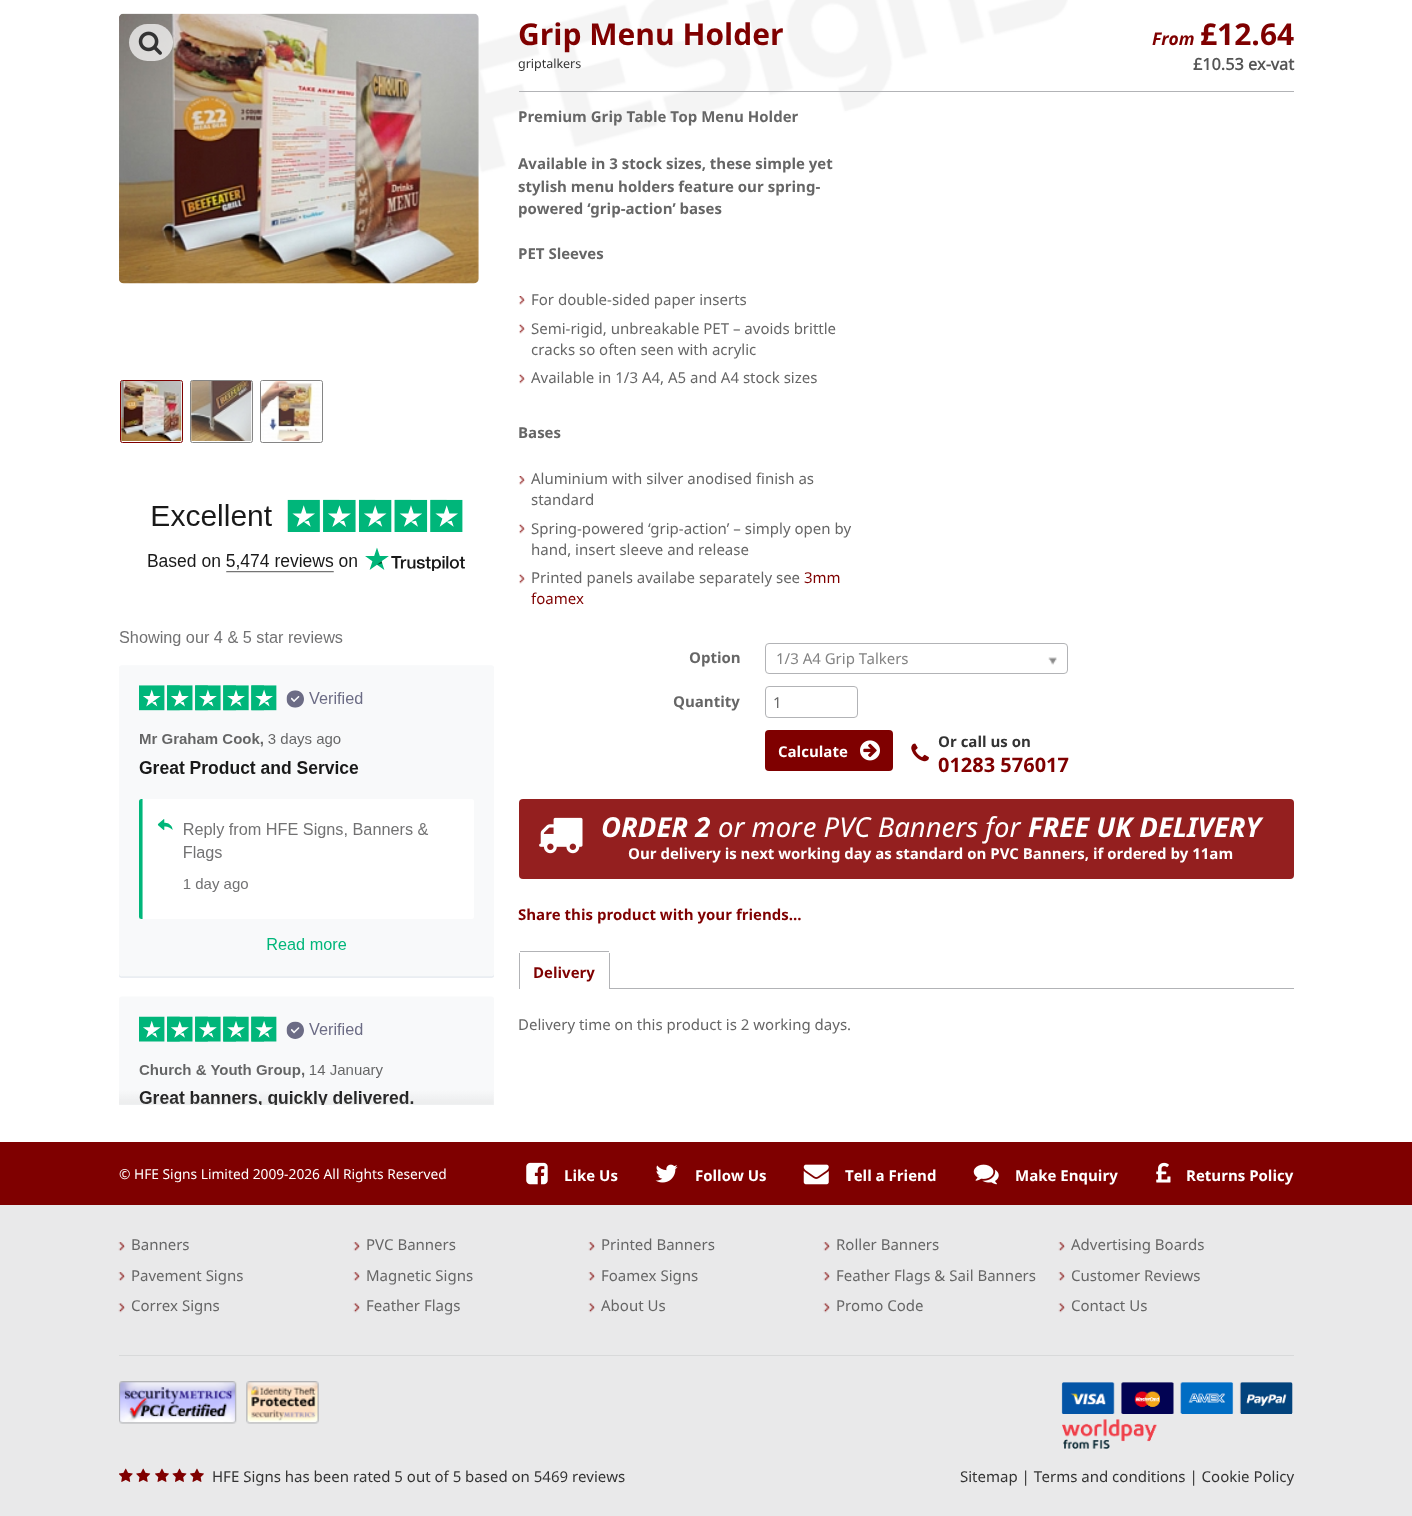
<!DOCTYPE html>
<meta charset="utf-8">
<style>body { margin: 0 } canvas { display: block }</style>
<canvas id="canvas" width="1412" height="1516"></canvas>
<img id="img1" src="images/1.png" hidden>
<img id="img2" src="images/2.png" hidden>
<img id="img3" src="images/3.png" hidden>
<img id="img4" src="images/4.png" hidden>
<img id="img5" src="images/5.png" hidden>
<img id="img6" src="images/6.png" hidden>
<img id="img7" src="images/7.png" hidden>
<img id="img8" src="images/8.png" hidden>
<img id="img9" src="images/9.png" hidden>
<img id="img10" src="images/10.png" hidden>
<img id="img11" src="images/11.png" hidden>
<img id="img12" src="images/12.png" hidden>
<img id="img13" src="images/13.png" hidden>
<img id="img14" src="images/14.png" hidden>
<img id="img15" src="images/15.png" hidden>
<img id="img16" src="images/16.png" hidden>
<img id="img17" src="images/17.png" hidden>
<img id="img18" src="images/18.png" hidden>
<img id="img19" src="images/19.png" hidden>
<img id="img20" src="images/20.png" hidden>
<img id="img21" src="images/21.png" hidden>
<img id="img22" src="images/22.png" hidden>
<img id="img23" src="images/23.png" hidden>
<img id="img24" src="images/24.png" hidden>
<img id="img25" src="images/25.png" hidden>
<img id="img26" src="images/26.png" hidden>
<img id="img27" src="images/27.png" hidden>
<img id="img28" src="images/28.png" hidden>
<img id="img29" src="images/29.png" hidden>
<script>
window.onload = function () {
    const canvas = document.getElementById('canvas');
    const context = canvas.getContext('2d');
    context.miterLimit = 4;
    context.fontKerning = 'normal';

    context.fillStyle = 'rgb(233, 233, 234)';
    context.fillRect(0, 0, 1412, 1516);
    context.fillStyle = 'rgb(255, 255, 255)';
    context.fillRect(0, 0, 1412, 1142);
    context.drawImage(document.getElementById('img1'), 344, 0, 724, 200);
    context.drawImage(document.getElementById('img2'), 119, 13, 360, 271);
    context.fillStyle = 'rgba(255, 255, 255, 0.7)';
    context.beginPath();
    context.roundRect(129, 24, 44, 37, 18.5);
    context.fill();
    context.drawImage(document.getElementById('img3'), 138, 31, 24, 24);
    context.beginPath();
    context.roundRect(120.5, 380.5, 62, 62, 2);
    context.strokeStyle = 'rgb(127, 0, 0)';
    context.stroke();
    context.drawImage(document.getElementById('img4'), 121, 381, 61, 60);
    context.beginPath();
    context.roundRect(190.5, 380.5, 62, 62, 2);
    context.strokeStyle = 'rgb(133, 133, 133)';
    context.stroke();
    context.drawImage(document.getElementById('img5'), 191, 381, 61, 60);
    context.beginPath();
    context.roundRect(260.5, 380.5, 62, 62, 2);
    context.stroke();
    context.drawImage(document.getElementById('img6'), 261, 381, 61, 60);
    context.drawImage(document.getElementById('img7'), 119, 499, 375, 606);
    context.fillStyle = 'rgb(178, 179, 182)';
    context.fillRect(519, 91, 775, 1);
    context.drawImage(document.getElementById('img8'), 518, 296, 7, 9);
    context.drawImage(document.getElementById('img9'), 518, 324, 7, 10);
    context.drawImage(document.getElementById('img9'), 518, 374, 7, 10);
    context.drawImage(document.getElementById('img8'), 518, 476, 7, 9);
    context.drawImage(document.getElementById('img9'), 518, 524, 7, 10);
    context.drawImage(document.getElementById('img9'), 518, 574, 7, 10);
    context.beginPath();
    context.roundRect(765.5, 643.5, 302, 30, 3.5);
    context.strokeStyle = 'rgb(178, 179, 182)';
    context.stroke();
    context.drawImage(document.getElementById('img10'), 1048, 657, 9, 8);
    context.beginPath();
    context.roundRect(765.5, 686.5, 92, 31, 3.5);
    context.stroke();
    context.fillStyle = 'rgb(127, 0, 0)';
    context.beginPath();
    context.roundRect(765, 730, 128, 41, 4);
    context.fill();
    context.drawImage(document.getElementById('img11'), 860, 740, 20, 21);
    context.drawImage(document.getElementById('img12'), 911, 743, 18, 19);
    context.fillStyle = 'rgb(148, 31, 31)';
    context.beginPath();
    context.roundRect(519, 799, 775, 80, 4);
    context.fill();
    context.drawImage(document.getElementById('img13'), 539, 817, 44, 37);
    context.fillStyle = 'rgb(178, 179, 182)';
    context.fillRect(520, 951, 89, 1);
    context.fillRect(609, 953, 1, 36);
    context.fillRect(519, 953, 1, 36);
    context.fillRect(610, 988, 684, 1);
    context.fillStyle = 'rgb(127, 0, 0)';
    context.fillRect(0, 1142, 1412, 63);
    context.drawImage(document.getElementById('img14'), 526, 1162, 22, 23);
    context.drawImage(document.getElementById('img15'), 655, 1164, 23, 19);
    context.drawImage(document.getElementById('img16'), 803, 1164, 26, 21);
    context.drawImage(document.getElementById('img17'), 973, 1164, 26, 21);
    context.drawImage(document.getElementById('img18'), 1156, 1162, 15, 21);
    context.drawImage(document.getElementById('img19'), 118, 1242, 7, 9);
    context.drawImage(document.getElementById('img19'), 118, 1272, 7, 9);
    context.drawImage(document.getElementById('img20'), 118, 1303, 7, 10);
    context.drawImage(document.getElementById('img19'), 353, 1242, 7, 9);
    context.drawImage(document.getElementById('img19'), 353, 1272, 7, 9);
    context.drawImage(document.getElementById('img20'), 353, 1303, 7, 10);
    context.drawImage(document.getElementById('img21'), 588, 1242, 7, 9);
    context.drawImage(document.getElementById('img21'), 588, 1272, 7, 9);
    context.drawImage(document.getElementById('img22'), 588, 1303, 7, 10);
    context.drawImage(document.getElementById('img19'), 823, 1242, 7, 9);
    context.drawImage(document.getElementById('img19'), 823, 1272, 7, 9);
    context.drawImage(document.getElementById('img20'), 823, 1303, 7, 10);
    context.drawImage(document.getElementById('img19'), 1058, 1242, 7, 9);
    context.drawImage(document.getElementById('img19'), 1058, 1272, 7, 9);
    context.drawImage(document.getElementById('img20'), 1058, 1303, 7, 10);
    context.fillStyle = 'rgb(216, 217, 218)';
    context.fillRect(119, 1355, 1175, 1);
    context.drawImage(document.getElementById('img23'), 119, 1381, 118, 43);
    context.drawImage(document.getElementById('img24'), 246, 1381, 73, 43);
    context.drawImage(document.getElementById('img25'), 119, 1468, 14, 14);
    context.drawImage(document.getElementById('img26'), 136, 1468, 15, 14);
    context.drawImage(document.getElementById('img27'), 155, 1468, 14, 14);
    context.drawImage(document.getElementById('img28'), 172, 1468, 15, 14);
    context.drawImage(document.getElementById('img27'), 190, 1468, 14, 14);
    context.drawImage(document.getElementById('img29'), 1061, 1382, 232, 67);
    context.font = 'bold 30px Open Sans';
    context.fillStyle = 'rgb(127, 0, 0)';
    context.fillText('Grip Menu Holder', 518, 45);
    context.font = 'italic bold 17.5px Noto Sans';
    context.fillText('From', 1152, 45);
    context.font = 'bold 30px Open Sans';
    context.fillText('£12.64', 1200, 45);
    context.font = 'bold 16.25px Noto Sans';
    context.fillStyle = 'rgb(85, 85, 85)';
    context.fillText('£10.53 ex-vat', 1193, 70);
    context.font = '12.5px Noto Sans';
    context.fillStyle = 'rgb(51, 51, 51)';
    context.fillText('griptalkers', 518, 68);
    context.font = 'bold 15px "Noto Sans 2"';
    context.fillStyle = 'rgb(102, 102, 102)';
    context.fillText('Premium Grip Table Top Menu Holder', 518, 122);
    context.fillText('Available in 3 stock sizes, these simple yet', 518, 169);
    context.fillText('stylish menu holders feature our spring-', 518, 192);
    context.fillText('powered ‘grip-action’ bases', 518, 214);
    context.fillText('PET Sleeves', 518, 259);
    context.font = '15px Noto Sans';
    context.fillText('For double-sided paper inserts', 531, 305);
    context.fillText('Semi-rigid, unbreakable PET – avoids brittle', 531, 334);
    context.fillText('cracks so often seen with acrylic', 531, 355);
    context.fillText('Available in 1/3 A4, A5 and A4 stock sizes', 531, 383);
    context.font = 'bold 15px "Noto Sans 2"';
    context.fillText('Bases', 518, 438);
    context.font = '15px Noto Sans';
    context.fillText('Aluminium with silver anodised finish as', 531, 484);
    context.fillText('standard', 531, 505);
    context.fillText('Spring-powered ‘grip-action’ – simply open by', 531, 534);
    context.fillText('hand, insert sleeve and release', 531, 555);
    context.fillText('Printed panels availabe separately see', 531, 583);
    context.fillStyle = 'rgb(127, 0, 0)';
    context.fillText('3mm', 804, 583);
    context.fillText('foamex', 531, 604);
    context.font = 'bold 15px "Noto Sans 2"';
    context.fillStyle = 'rgb(102, 102, 102)';
    context.fillText('Option', 689, 663);
    context.font = '15px Noto Sans';
    context.fillStyle = 'rgb(131, 131, 131)';
    context.fillText('1/3 A4 Grip Talkers', 776, 664);
    context.font = 'bold 15px "Noto Sans 2"';
    context.fillStyle = 'rgb(102, 102, 102)';
    context.fillText('Quantity', 673, 707);
    context.font = '15px Noto Sans';
    context.fillText('1', 773, 708);
    context.font = 'bold 15px "Noto Sans 2"';
    context.fillStyle = 'rgb(255, 255, 255)';
    context.fillText('Calculate', 778, 757);
    context.fillStyle = 'rgb(51, 51, 51)';
    context.fillText('Or call us on', 938, 747);
    context.font = 'bold 20px "Noto Sans 2"';
    context.fillStyle = 'rgb(127, 0, 0)';
    context.fillText('01283 576017', 938, 772);
    context.font = 'italic bold 27.5px Noto Sans';
    context.fillStyle = 'rgb(255, 255, 255)';
    context.fillText('ORDER 2', 601, 837);
    context.font = 'italic 27.5px Noto Sans';
    context.fillText('or more PVC Banners for', 718, 837);
    context.font = 'italic bold 27.5px Noto Sans';
    context.fillText('FREE UK DELIVERY', 1028, 837);
    context.font = 'bold 15px "Noto Sans 2"';
    context.fillText('Our delivery is next working day as standard on PVC Banners, if ordered by 11am', 628, 859);
    context.fillStyle = 'rgb(127, 0, 0)';
    context.fillText('Share this product with your friends...', 518, 920);
    context.fillText('Delivery', 533, 978);
    context.font = '15px Noto Sans';
    context.fillStyle = 'rgb(102, 102, 102)';
    context.fillText('Delivery time on this product is 2 working days.', 518, 1030);
    context.font = '13.75px Noto Sans';
    context.fillStyle = 'rgb(255, 255, 255)';
    context.fillText('© HFE Signs Limited 2009-2026 All Rights Reserved', 119, 1179);
    context.font = 'bold 15px Open Sans';
    context.fillText('Like Us', 564, 1181);
    context.fillText('Follow Us', 695, 1181);
    context.fillText('Tell a Friend', 845, 1181);
    context.fillText('Make Enquiry', 1015, 1181);
    context.fillText('Returns Policy', 1186, 1181);
    context.font = '15px Noto Sans';
    context.fillStyle = 'rgb(102, 102, 102)';
    context.fillText('Banners', 131, 1250);
    context.fillText('Pavement Signs', 131, 1281);
    context.fillText('Correx Signs', 131, 1311);
    context.fillText('PVC Banners', 366, 1250);
    context.fillText('Magnetic Signs', 366, 1281);
    context.fillText('Feather Flags', 366, 1311);
    context.fillText('Printed Banners', 601, 1250);
    context.fillText('Foamex Signs', 601, 1281);
    context.fillText('About Us', 601, 1311);
    context.fillText('Roller Banners', 836, 1250);
    context.fillText('Feather Flags & Sail Banners', 836, 1281);
    context.fillText('Promo Code', 836, 1311);
    context.fillText('Advertising Boards', 1071, 1250);
    context.fillText('Customer Reviews', 1071, 1281);
    context.fillText('Contact Us', 1071, 1311);
    context.fillStyle = 'rgb(51, 51, 51)';
    context.fillText('HFE Signs has been rated 5 out of 5 based on 5469 reviews', 212, 1482);
    context.fillText('Sitemap | Terms and conditions | Cookie Policy', 960, 1482);
};
</script>
